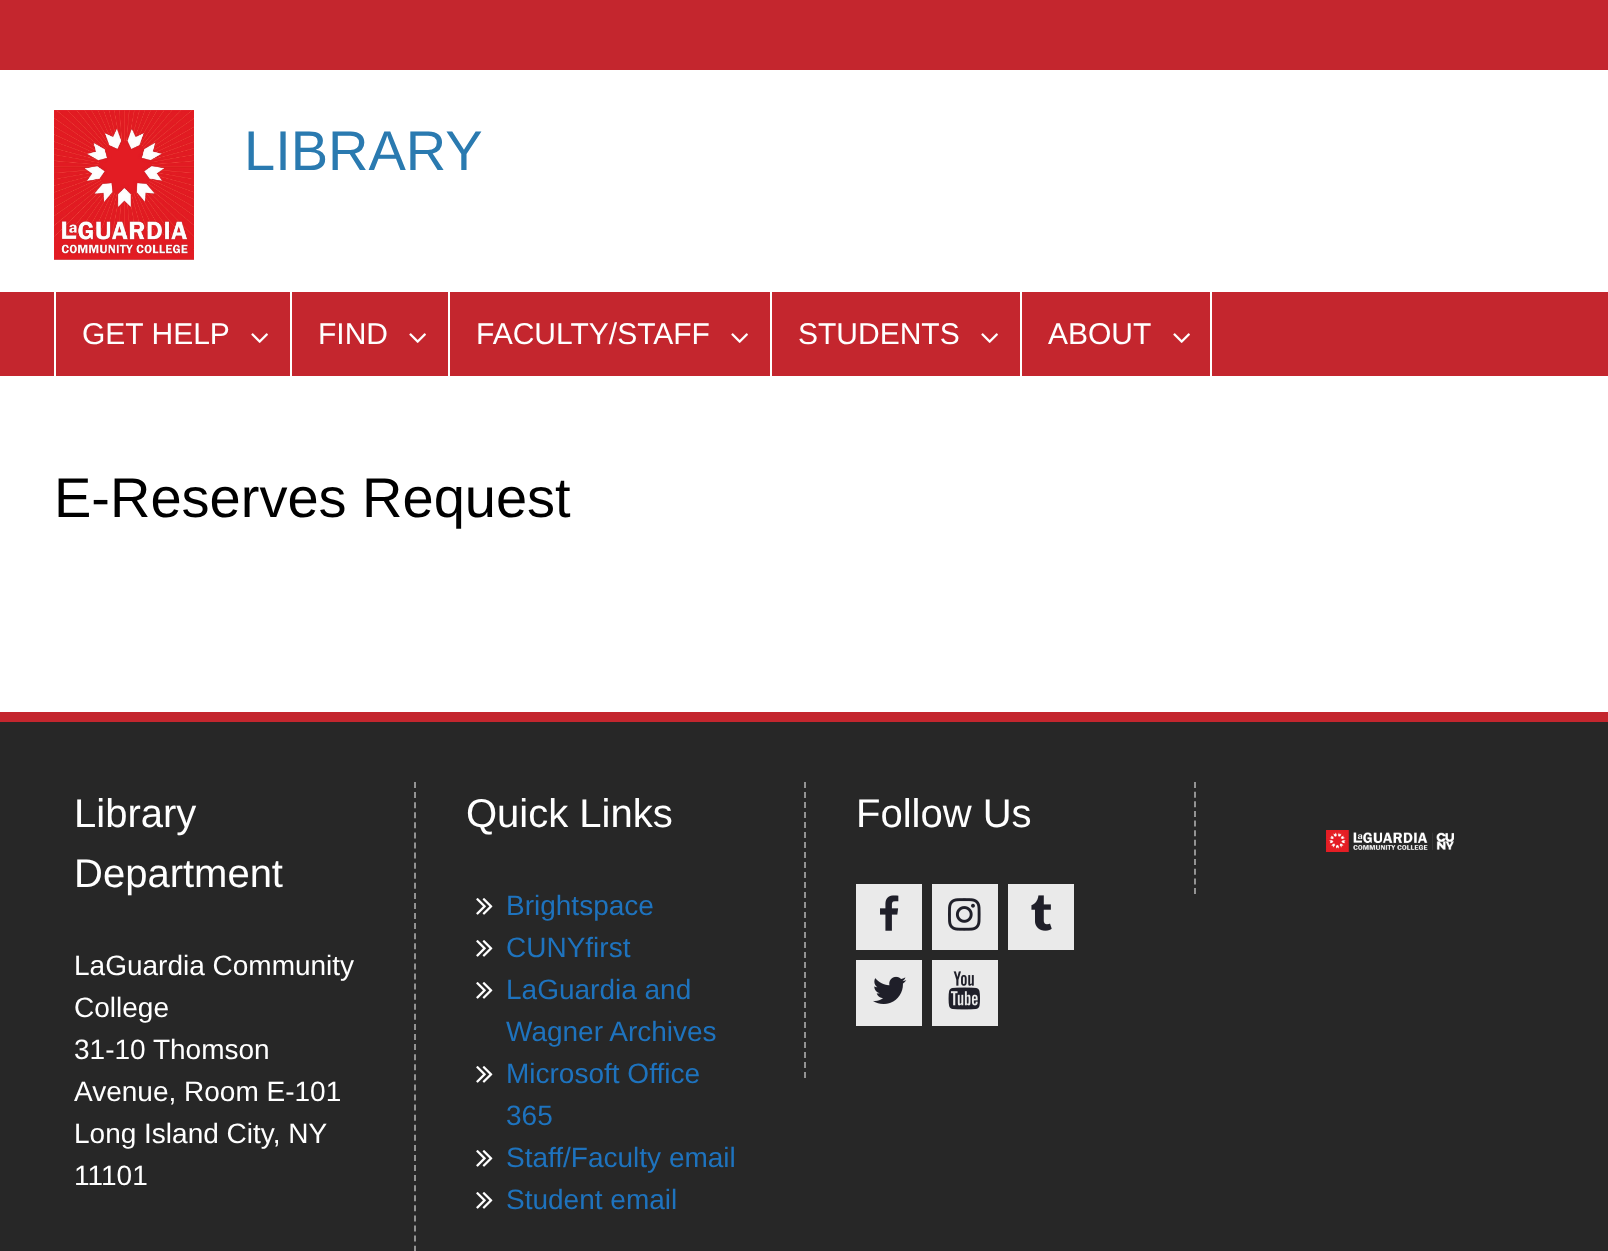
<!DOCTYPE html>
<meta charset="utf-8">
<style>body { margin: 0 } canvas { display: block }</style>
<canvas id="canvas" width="1608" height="1251"></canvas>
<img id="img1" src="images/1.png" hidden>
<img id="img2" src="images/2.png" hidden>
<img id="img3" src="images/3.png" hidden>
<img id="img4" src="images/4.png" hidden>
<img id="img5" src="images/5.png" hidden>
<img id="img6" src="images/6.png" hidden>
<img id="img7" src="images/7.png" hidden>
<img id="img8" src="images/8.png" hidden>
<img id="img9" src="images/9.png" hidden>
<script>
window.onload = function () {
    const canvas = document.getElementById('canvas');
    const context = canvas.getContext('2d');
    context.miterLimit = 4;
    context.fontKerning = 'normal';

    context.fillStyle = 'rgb(255, 255, 255)';
    context.fillRect(0, 0, 1608, 1251);
    context.fillStyle = 'rgb(196, 38, 46)';
    context.fillRect(0, 0, 1608, 70);
    context.drawImage(document.getElementById('img1'), 54, 110, 140, 150);
    context.fillRect(0, 292, 1608, 84);
    context.fillStyle = 'rgb(255, 255, 255)';
    context.fillRect(290, 292, 2, 84);
    context.fillRect(54, 292, 2, 84);
    context.drawImage(document.getElementById('img2'), 251, 333, 17, 10);
    context.fillRect(448, 292, 2, 84);
    context.drawImage(document.getElementById('img2'), 409, 333, 17, 10);
    context.fillRect(770, 292, 2, 84);
    context.drawImage(document.getElementById('img2'), 731, 333, 17, 10);
    context.fillRect(1020, 292, 2, 84);
    context.drawImage(document.getElementById('img2'), 981, 333, 17, 10);
    context.fillRect(1210, 292, 2, 84);
    context.drawImage(document.getElementById('img2'), 1173, 333, 17, 10);
    context.fillStyle = 'rgb(39, 39, 39)';
    context.fillRect(0, 722, 1608, 529);
    context.fillStyle = 'rgb(196, 38, 46)';
    context.fillRect(0, 712, 1608, 10);
    context.beginPath();
    context.moveTo(415, 782);
    context.lineTo(415, 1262);
    context.strokeStyle = 'rgb(147, 147, 147)';
    context.lineWidth = 2;
    context.setLineDash([6, 4.08]);
    context.stroke();
    context.drawImage(document.getElementById('img3'), 476, 898, 17, 17);
    context.drawImage(document.getElementById('img3'), 476, 940, 17, 17);
    context.drawImage(document.getElementById('img3'), 476, 982, 17, 17);
    context.drawImage(document.getElementById('img3'), 476, 1066, 17, 17);
    context.drawImage(document.getElementById('img3'), 476, 1150, 17, 17);
    context.drawImage(document.getElementById('img3'), 476, 1192, 17, 17);
    context.beginPath();
    context.moveTo(805, 782);
    context.lineTo(805, 1078);
    context.setLineDash([6, 4]);
    context.stroke();
    context.fillStyle = 'rgb(234, 234, 234)';
    context.fillRect(856, 884, 66, 66);
    context.drawImage(document.getElementById('img4'), 880, 895, 19, 36);
    context.fillRect(932, 884, 66, 66);
    context.drawImage(document.getElementById('img5'), 948, 898, 33, 33);
    context.fillRect(1008, 884, 66, 66);
    context.drawImage(document.getElementById('img6'), 1031, 895, 21, 36);
    context.fillRect(856, 960, 66, 66);
    context.drawImage(document.getElementById('img7'), 873, 976, 34, 28);
    context.fillRect(932, 960, 66, 66);
    context.drawImage(document.getElementById('img8'), 948, 971, 32, 39);
    context.beginPath();
    context.moveTo(1195, 782);
    context.lineTo(1195, 894);
    context.setLineDash([6, 3.64]);
    context.stroke();
    context.drawImage(document.getElementById('img9'), 1326, 830, 128, 22);
    context.font = '56px Liberation Sans';
    context.fillStyle = 'rgb(42, 122, 176)';
    context.fillText('LIBRARY', 244, 170);
    context.font = '30px Liberation Sans';
    context.fillStyle = 'rgb(255, 255, 255)';
    context.fillText('GET HELP', 82, 344);
    context.fillText('FIND', 318, 344);
    context.fillText('FACULTY/STAFF', 476, 344);
    context.fillText('STUDENTS', 798, 344);
    context.fillText('ABOUT', 1048, 344);
    context.font = '56px Liberation Sans';
    context.fillStyle = 'rgb(0, 0, 0)';
    context.fillText('E-Reserves Request', 54, 517);
    context.font = '40px Liberation Sans';
    context.fillStyle = 'rgb(255, 255, 255)';
    context.fillText('Library', 74, 827);
    context.fillText('Department', 74, 887);
    context.font = '28px Liberation Sans';
    context.fillText('LaGuardia Community', 74, 975);
    context.fillText('College', 74, 1017);
    context.fillText('31-10 Thomson', 74, 1059);
    context.fillText('Avenue, Room E-101', 74, 1101);
    context.fillText('Long Island City, NY', 74, 1143);
    context.fillText('11101', 74, 1185);
    context.font = '40px Liberation Sans';
    context.fillText('Quick Links', 466, 827);
    context.font = '28px Liberation Sans';
    context.fillStyle = 'rgb(30, 115, 190)';
    context.fillText('Brightspace', 506, 915);
    context.fillText('CUNYfirst', 506, 957);
    context.fillText('LaGuardia and', 506, 999);
    context.fillText('Wagner Archives', 506, 1041);
    context.fillText('Microsoft Office', 506, 1083);
    context.fillText('365', 506, 1125);
    context.fillText('Staff/Faculty email', 506, 1167);
    context.fillText('Student email', 506, 1209);
    context.font = '40px Liberation Sans';
    context.fillStyle = 'rgb(255, 255, 255)';
    context.fillText('Follow Us', 856, 827);
};
</script>
